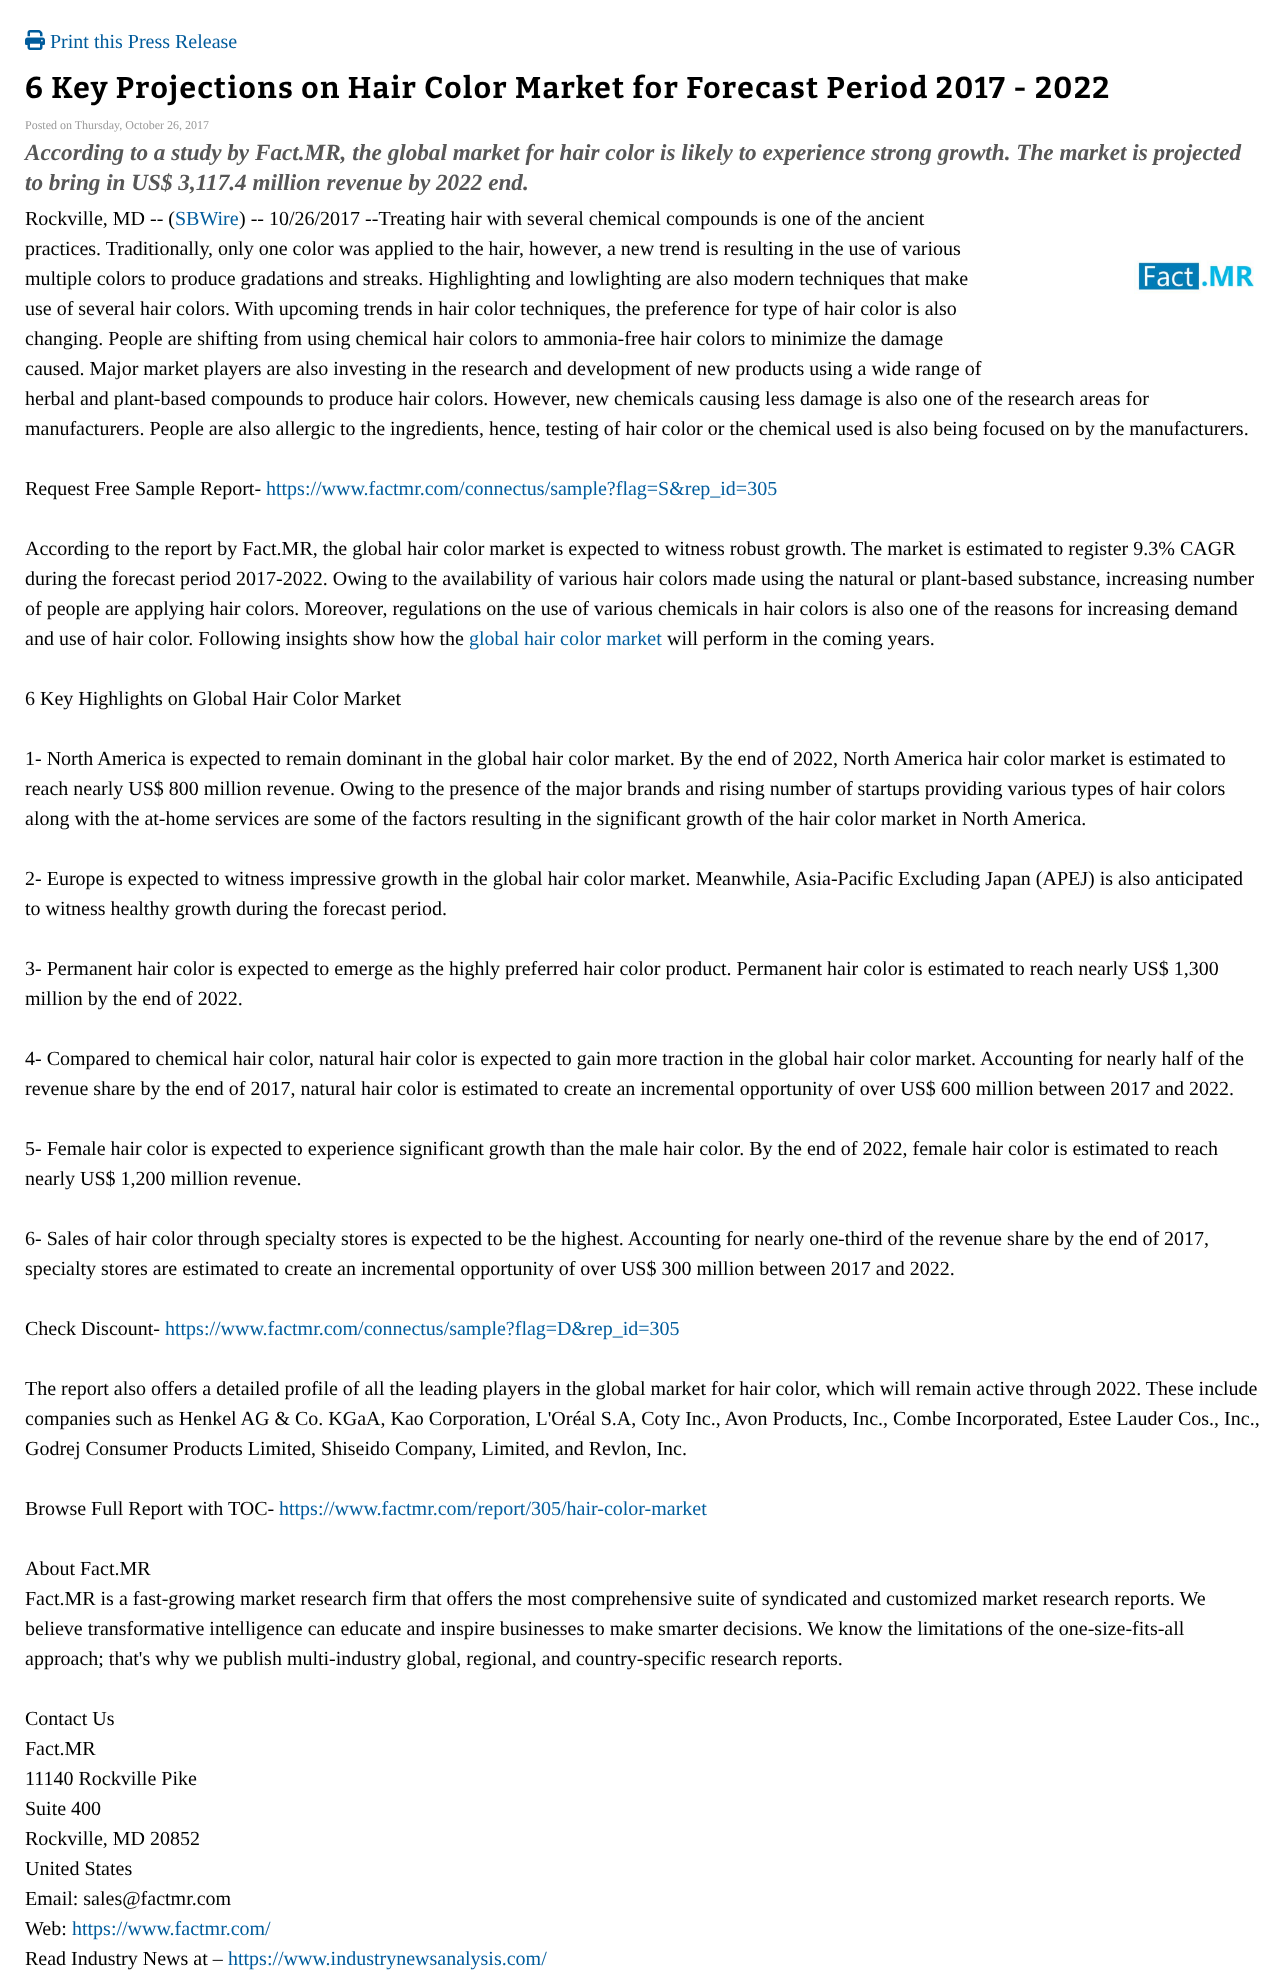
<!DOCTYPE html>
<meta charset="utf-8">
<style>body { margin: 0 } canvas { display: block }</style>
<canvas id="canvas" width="1286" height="1976"></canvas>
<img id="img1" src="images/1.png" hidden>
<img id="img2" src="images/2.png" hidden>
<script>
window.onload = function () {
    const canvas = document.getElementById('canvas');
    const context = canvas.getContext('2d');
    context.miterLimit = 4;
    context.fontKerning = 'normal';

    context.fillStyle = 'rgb(255, 255, 255)';
    context.fillRect(0, 0, 1286, 1976);
    context.drawImage(document.getElementById('img1'), 25, 30, 20, 20);
    context.drawImage(document.getElementById('img2'), 1134, 260, 120, 34);
    context.font = '20px Liberation Serif';
    context.fillStyle = 'rgb(0, 92, 156)';
    context.fillText('Print this Press Release', 50, 48);
    context.letterSpacing = '1.5px';
    context.font = 'bold 30px Bitter';
    context.fillStyle = 'rgb(0, 0, 0)';
    context.fillText('6 Key Projections on Hair Color Market for Forecast Period 2017 - 2022', 25, 98);
    context.letterSpacing = '0px';
    context.font = '12px Liberation Serif';
    context.fillStyle = 'rgb(153, 153, 153)';
    context.fillText('Posted on Thursday, October 26, 2017', 25, 129);
    context.font = 'italic bold 23.2px Liberation Serif';
    context.fillStyle = 'rgb(87, 87, 87)';
    context.fillText('According to a study by Fact.MR, the global market for hair color is likely to experience strong growth. The market is projected', 25, 160);
    context.fillText('to bring in US$ 3,117.4 million revenue by 2022 end.', 25, 190);
    context.font = '20px Liberation Serif';
    context.fillStyle = 'rgb(0, 0, 0)';
    context.fillText('Rockville, MD -- (', 25, 225);
    context.fillStyle = 'rgb(0, 92, 156)';
    context.fillText('SBWire', 175, 225);
    context.fillStyle = 'rgb(0, 0, 0)';
    context.fillText(') -- 10/26/2017 --Treating hair with several chemical compounds is one of the ancient', 239, 225);
    context.fillText('practices. Traditionally, only one color was applied to the hair, however, a new trend is resulting in the use of various', 25, 255);
    context.fillText('multiple colors to produce gradations and streaks. Highlighting and lowlighting are also modern techniques that make', 25, 285);
    context.fillText('use of several hair colors. With upcoming trends in hair color techniques, the preference for type of hair color is also', 25, 315);
    context.fillText('changing. People are shifting from using chemical hair colors to ammonia-free hair colors to minimize the damage', 25, 345);
    context.fillText('caused. Major market players are also investing in the research and development of new products using a wide range of', 25, 375);
    context.fillText('herbal and plant-based compounds to produce hair colors. However, new chemicals causing less damage is also one of the research areas for', 25, 405);
    context.fillText('manufacturers. People are also allergic to the ingredients, hence, testing of hair color or the chemical used is also being focused on by the manufacturers.', 25, 435);
    context.fillText('Request Free Sample Report-', 25, 495);
    context.fillStyle = 'rgb(0, 92, 156)';
    context.fillText('https://www.factmr.com/connectus/sample?flag=S&rep_id=305', 266, 495);
    context.fillStyle = 'rgb(0, 0, 0)';
    context.fillText('According to the report by Fact.MR, the global hair color market is expected to witness robust growth. The market is estimated to register 9.3% CAGR', 25, 555);
    context.fillText('during the forecast period 2017-2022. Owing to the availability of various hair colors made using the natural or plant-based substance, increasing number', 25, 585);
    context.fillText('of people are applying hair colors. Moreover, regulations on the use of various chemicals in hair colors is also one of the reasons for increasing demand', 25, 615);
    context.fillText('and use of hair color. Following insights show how the', 25, 645);
    context.fillStyle = 'rgb(0, 92, 156)';
    context.fillText('global hair color market', 469, 645);
    context.fillStyle = 'rgb(0, 0, 0)';
    context.fillText('will perform in the coming years.', 667, 645);
    context.fillText('6 Key Highlights on Global Hair Color Market', 25, 705);
    context.fillText('1- North America is expected to remain dominant in the global hair color market. By the end of 2022, North America hair color market is estimated to', 25, 765);
    context.fillText('reach nearly US$ 800 million revenue. Owing to the presence of the major brands and rising number of startups providing various types of hair colors', 25, 795);
    context.fillText('along with the at-home services are some of the factors resulting in the significant growth of the hair color market in North America.', 25, 825);
    context.fillText('2- Europe is expected to witness impressive growth in the global hair color market. Meanwhile, Asia-Pacific Excluding Japan (APEJ) is also anticipated', 25, 885);
    context.fillText('to witness healthy growth during the forecast period.', 25, 915);
    context.fillText('3- Permanent hair color is expected to emerge as the highly preferred hair color product. Permanent hair color is estimated to reach nearly US$ 1,300', 25, 975);
    context.fillText('million by the end of 2022.', 25, 1005);
    context.fillText('4- Compared to chemical hair color, natural hair color is expected to gain more traction in the global hair color market. Accounting for nearly half of the', 25, 1065);
    context.fillText('revenue share by the end of 2017, natural hair color is estimated to create an incremental opportunity of over US$ 600 million between 2017 and 2022.', 25, 1095);
    context.fillText('5- Female hair color is expected to experience significant growth than the male hair color. By the end of 2022, female hair color is estimated to reach', 25, 1155);
    context.fillText('nearly US$ 1,200 million revenue.', 25, 1185);
    context.fillText('6- Sales of hair color through specialty stores is expected to be the highest. Accounting for nearly one-third of the revenue share by the end of 2017,', 25, 1245);
    context.fillText('specialty stores are estimated to create an incremental opportunity of over US$ 300 million between 2017 and 2022.', 25, 1275);
    context.fillText('Check Discount-', 25, 1335);
    context.fillStyle = 'rgb(0, 92, 156)';
    context.fillText('https://www.factmr.com/connectus/sample?flag=D&rep_id=305', 165, 1335);
    context.fillStyle = 'rgb(0, 0, 0)';
    context.fillText('The report also offers a detailed profile of all the leading players in the global market for hair color, which will remain active through 2022. These include', 25, 1395);
    context.fillText('companies such as Henkel AG & Co. KGaA, Kao Corporation, L\'Oréal S.A, Coty Inc., Avon Products, Inc., Combe Incorporated, Estee Lauder Cos., Inc.,', 25, 1425);
    context.fillText('Godrej Consumer Products Limited, Shiseido Company, Limited, and Revlon, Inc.', 25, 1455);
    context.fillText('Browse Full Report with TOC-', 25, 1515);
    context.fillStyle = 'rgb(0, 92, 156)';
    context.fillText('https://www.factmr.com/report/305/hair-color-market', 279, 1515);
    context.fillStyle = 'rgb(0, 0, 0)';
    context.fillText('About Fact.MR', 25, 1575);
    context.fillText('Fact.MR is a fast-growing market research firm that offers the most comprehensive suite of syndicated and customized market research reports. We', 25, 1605);
    context.fillText('believe transformative intelligence can educate and inspire businesses to make smarter decisions. We know the limitations of the one-size-fits-all', 25, 1635);
    context.fillText('approach; that\'s why we publish multi-industry global, regional, and country-specific research reports.', 25, 1665);
    context.fillText('Contact Us', 25, 1725);
    context.fillText('Fact.MR', 25, 1755);
    context.fillText('11140 Rockville Pike', 25, 1785);
    context.fillText('Suite 400', 25, 1815);
    context.fillText('Rockville, MD 20852', 25, 1845);
    context.fillText('United States', 25, 1875);
    context.fillText('Email: sales@factmr.com', 25, 1905);
    context.fillText('Web:', 25, 1935);
    context.fillStyle = 'rgb(0, 92, 156)';
    context.fillText('https://www.factmr.com/', 72, 1935);
    context.fillStyle = 'rgb(0, 0, 0)';
    context.fillText('Read Industry News at –', 25, 1965);
    context.fillStyle = 'rgb(0, 92, 156)';
    context.fillText('https://www.industrynewsanalysis.com/', 228, 1965);
};
</script>
